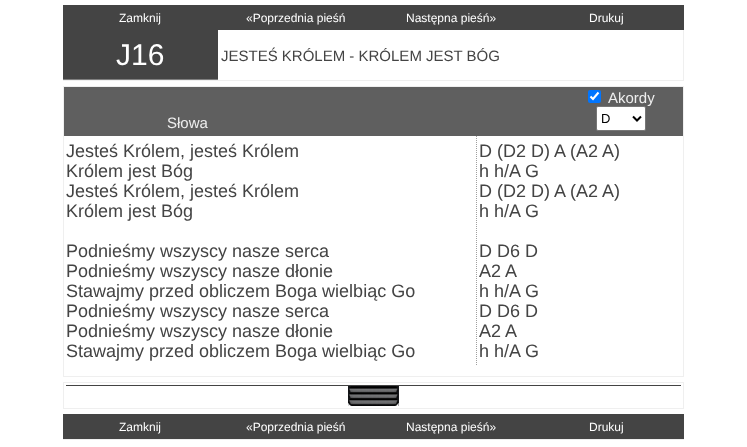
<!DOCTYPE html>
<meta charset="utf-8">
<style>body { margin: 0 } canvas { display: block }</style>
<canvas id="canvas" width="747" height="447"></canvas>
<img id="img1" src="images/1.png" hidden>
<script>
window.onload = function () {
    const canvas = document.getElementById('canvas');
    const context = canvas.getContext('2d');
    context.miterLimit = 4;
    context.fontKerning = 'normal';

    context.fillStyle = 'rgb(255, 255, 255)';
    context.fillRect(0, 0, 747, 447);
    context.fillStyle = 'rgb(239, 239, 239)';
    context.fillRect(63, 80, 621, 1);
    context.fillStyle = 'rgb(68, 68, 68)';
    context.fillRect(63, 5, 621, 25);
    context.fillRect(63, 30, 155, 49);
    context.fillStyle = 'rgb(127, 127, 127)';
    context.fillRect(63, 79, 155, 1);
    context.fillStyle = 'rgb(239, 239, 239)';
    context.fillRect(683, 30, 1, 50);
    context.strokeStyle = 'rgb(239, 239, 239)';
    context.strokeRect(63.5, 86.5, 620, 290);
    context.fillStyle = 'rgb(95, 95, 95)';
    context.fillRect(64, 87, 619, 49);
    context.fillStyle = 'rgb(0, 117, 255)';
    context.beginPath();
    context.roundRect(588, 90, 13, 13, 2);
    context.fill();
    context.beginPath();
    context.moveTo(590.5, 96.5);
    context.lineTo(593, 99);
    context.lineTo(598.5, 92.5);
    context.strokeStyle = 'rgb(255, 255, 255)';
    context.lineWidth = 2.1;
    context.stroke();
    context.beginPath();
    context.moveTo(476.5, 136);
    context.lineTo(476.5, 366);
    context.strokeStyle = 'rgb(159, 159, 159)';
    context.lineWidth = 1;
    context.setLineDash([1, 1]);
    context.stroke();
    context.strokeStyle = 'rgb(239, 239, 239)';
    context.setLineDash([]);
    context.strokeRect(63.5, 382.5, 620, 26);
    context.fillStyle = 'rgb(68, 68, 68)';
    context.fillRect(66, 385, 615, 1);
    context.drawImage(document.getElementById('img1'), 348, 386, 51, 20);
    context.fillStyle = 'rgb(239, 239, 239)';
    context.fillRect(63, 439, 621, 1);
    context.fillStyle = 'rgb(68, 68, 68)';
    context.fillRect(63, 414, 621, 25);
    context.font = '12px Liberation Sans';
    context.fillStyle = 'rgb(255, 255, 255)';
    context.fillText('Zamknij', 119, 22);
    context.fillText('«Poprzednia pieśń', 246, 22);
    context.fillText('Następna pieśń»', 406, 22);
    context.fillText('Drukuj', 589, 22);
    context.font = '30px Liberation Sans';
    context.fillText('J16', 116, 65);
    context.font = '15px Liberation Sans';
    context.fillStyle = 'rgb(68, 68, 68)';
    context.fillText('JESTEŚ KRÓLEM - KRÓLEM JEST BÓG', 221, 61);
    context.fillStyle = 'rgb(238, 238, 238)';
    context.fillText('Słowa', 167, 128);
    context.fillText('Akordy', 608, 103);
    context.fillStyle = 'rgb(255, 255, 255)';
    context.beginPath();
    context.roundRect(596.5, 106.5, 49, 24, 1.5);
    context.fill();
    context.strokeStyle = 'rgb(118, 118, 118)';
    context.stroke();
    context.beginPath();
    context.moveTo(633, 116.5);
    context.lineTo(637, 120.5);
    context.lineTo(641, 116.5);
    context.strokeStyle = 'rgb(0, 0, 0)';
    context.lineWidth = 2;
    context.stroke();
    context.font = '13px Liberation Sans';
    context.fillStyle = 'rgb(0, 0, 0)';
    context.fillText('D', 601, 123);
    context.font = '18px Liberation Sans';
    context.fillStyle = 'rgb(68, 68, 68)';
    context.fillText('Jesteś Królem, jesteś Królem', 66, 157);
    context.fillText('Królem jest Bóg', 66, 177);
    context.fillText('Jesteś Królem, jesteś Królem', 66, 197);
    context.fillText('Królem jest Bóg', 66, 217);
    context.fillText('Podnieśmy wszyscy nasze serca', 66, 257);
    context.fillText('Podnieśmy wszyscy nasze dłonie', 66, 277);
    context.fillText('Stawajmy przed obliczem Boga wielbiąc Go', 66, 297);
    context.fillText('Podnieśmy wszyscy nasze serca', 66, 317);
    context.fillText('Podnieśmy wszyscy nasze dłonie', 66, 337);
    context.fillText('Stawajmy przed obliczem Boga wielbiąc Go', 66, 357);
    context.fillText('D (D2 D) A (A2 A)', 479, 157);
    context.fillText('h h/A G', 479, 177);
    context.fillText('D (D2 D) A (A2 A)', 479, 197);
    context.fillText('h h/A G', 479, 217);
    context.fillText('D D6 D', 479, 257);
    context.fillText('A2 A', 479, 277);
    context.fillText('h h/A G', 479, 297);
    context.fillText('D D6 D', 479, 317);
    context.fillText('A2 A', 479, 337);
    context.fillText('h h/A G', 479, 357);
    context.font = '12px Liberation Sans';
    context.fillStyle = 'rgb(255, 255, 255)';
    context.fillText('Zamknij', 119, 431);
    context.fillText('«Poprzednia pieśń', 246, 431);
    context.fillText('Następna pieśń»', 406, 431);
    context.fillText('Drukuj', 589, 431);
};
</script>
